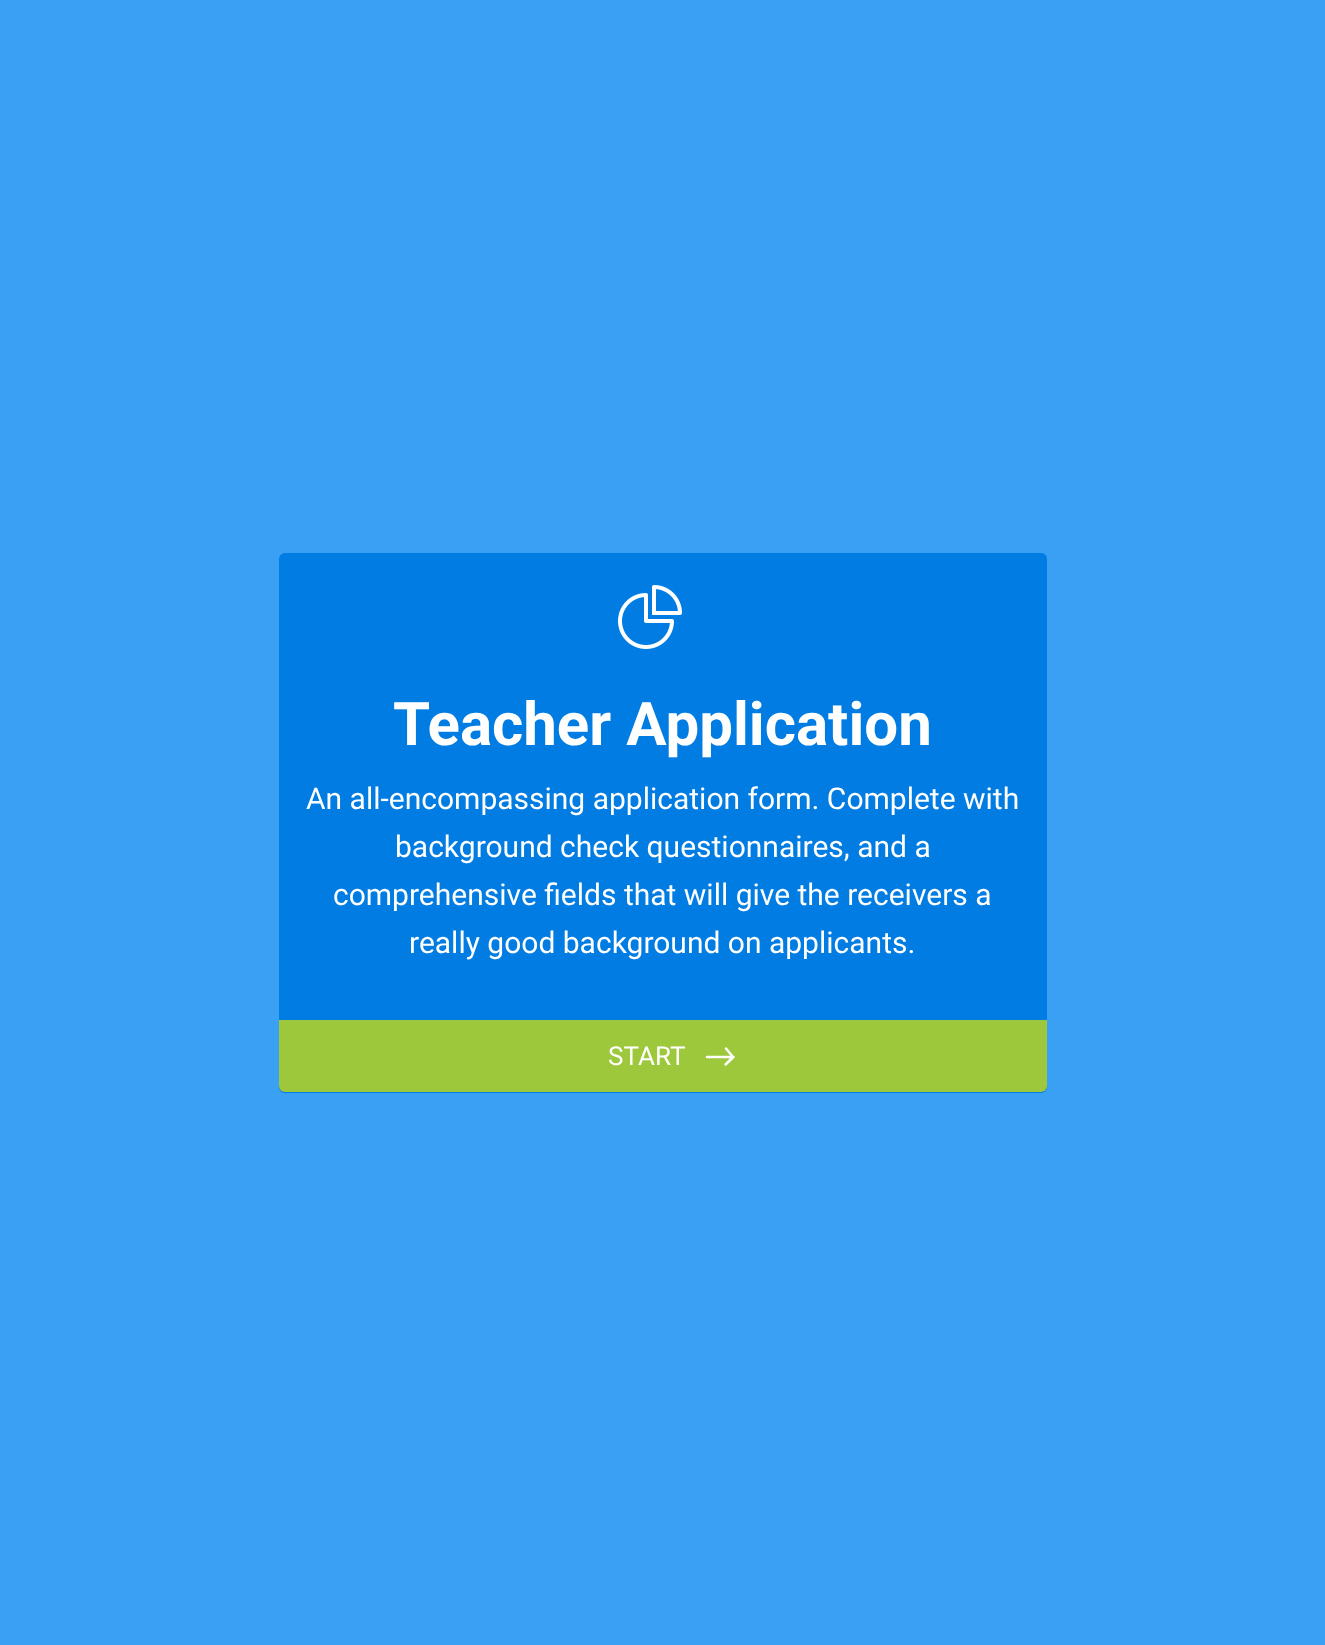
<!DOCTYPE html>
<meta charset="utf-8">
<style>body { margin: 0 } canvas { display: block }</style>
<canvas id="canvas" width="1325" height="1645"></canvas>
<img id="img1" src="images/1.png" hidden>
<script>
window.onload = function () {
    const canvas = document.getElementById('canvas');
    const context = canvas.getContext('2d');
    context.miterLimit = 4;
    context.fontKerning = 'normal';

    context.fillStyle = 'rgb(58, 160, 243)';
    context.fillRect(0, 0, 1325, 1645);
    context.fillStyle = 'rgb(0, 124, 226)';
    context.beginPath();
    context.roundRect(279, 553, 768, 540, 6);
    context.fill();
    context.drawImage(document.getElementById('img1'), 618, 585, 64, 64);
    context.fillStyle = 'rgb(157, 200, 59)';
    context.beginPath();
    context.roundRect(279, 1020, 768, 72, [0, 0, 6, 6]);
    context.fill();
    context.beginPath();
    context.moveTo(707, 1057);
    context.lineTo(733.5, 1057);
    context.lineTo(725.5, 1064.5);
    context.moveTo(726, 1048.5);
    context.lineTo(733, 1057);
    context.lineTo(729.5, 1060.5);
    context.strokeStyle = 'rgb(255, 255, 255)';
    context.lineWidth = 2.5;
    context.lineCap = 'round';
    context.lineJoin = 'round';
    context.stroke();
    context.font = 'bold 60px Roboto';
    context.fillStyle = 'rgb(255, 255, 255)';
    context.fillText('Teacher Application', 393, 745);
    context.font = '30px Roboto';
    context.fillText('An all-encompassing application form. Complete with', 306, 809);
    context.fillText('background check questionnaires, and a', 395, 857);
    context.fillText('comprehensive fields that will give the receivers a', 333, 905);
    context.fillText('really good background on applicants.', 409, 953);
    context.font = '26px Roboto';
    context.fillText('START', 608, 1065);
};
</script>
